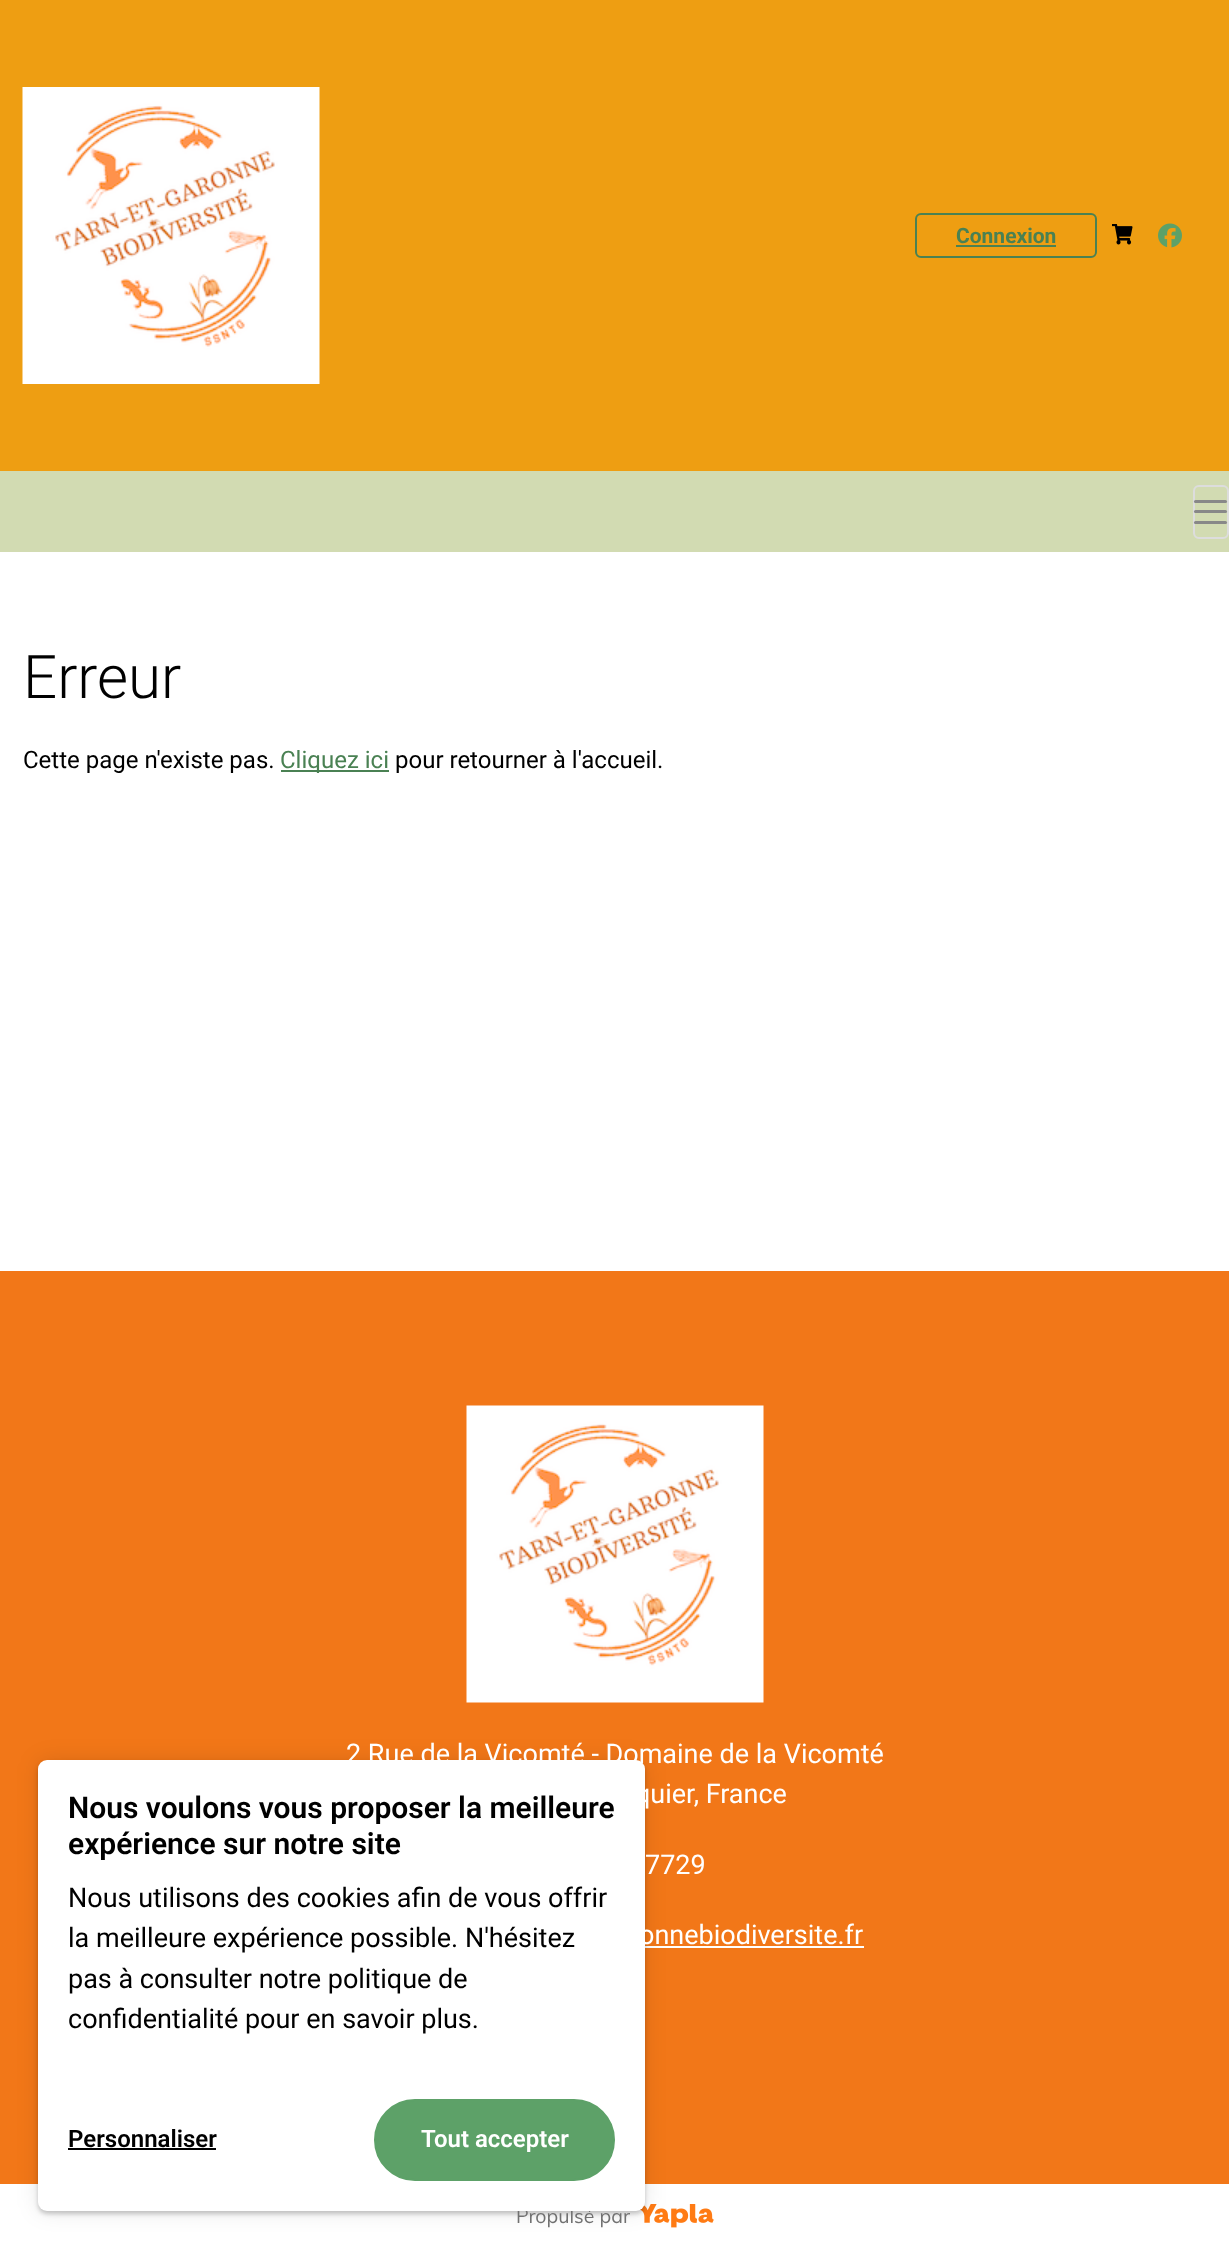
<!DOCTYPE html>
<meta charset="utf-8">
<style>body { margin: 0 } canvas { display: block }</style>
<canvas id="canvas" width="1229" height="2248"></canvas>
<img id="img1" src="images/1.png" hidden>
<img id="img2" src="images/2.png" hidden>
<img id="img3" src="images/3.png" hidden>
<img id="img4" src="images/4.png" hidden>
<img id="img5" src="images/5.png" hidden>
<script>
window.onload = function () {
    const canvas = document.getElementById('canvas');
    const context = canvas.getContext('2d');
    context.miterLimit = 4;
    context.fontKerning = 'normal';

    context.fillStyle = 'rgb(255, 255, 255)';
    context.fillRect(0, 0, 1229, 2248);
    context.fillStyle = 'rgb(238, 158, 18)';
    context.fillRect(0, 0, 1229, 471);
    context.drawImage(document.getElementById('img1'), 22, 87, 298, 297);
    context.beginPath();
    context.roundRect(916, 214, 180, 43, 5);
    context.strokeStyle = 'rgb(74, 129, 83)';
    context.lineWidth = 2;
    context.stroke();
    context.fillStyle = 'rgb(74, 129, 83)';
    context.fillRect(956, 245, 100, 2);
    context.drawImage(document.getElementById('img2'), 1112, 224, 21, 21);
    context.drawImage(document.getElementById('img3'), 1158, 223, 24, 25);
    context.fillStyle = 'rgb(210, 219, 178)';
    context.fillRect(0, 471, 1229, 81);
    context.beginPath();
    context.roundRect(1194, 486, 34, 52, 5);
    context.strokeStyle = 'rgb(221, 221, 221)';
    context.stroke();
    context.fillStyle = 'rgb(136, 136, 136)';
    context.beginPath();
    context.roundRect(1194, 500, 33, 3, 1.5);
    context.fill();
    context.beginPath();
    context.roundRect(1194, 510, 33, 3, 1.5);
    context.fill();
    context.beginPath();
    context.roundRect(1194, 521, 33, 3, 1.5);
    context.fill();
    context.fillStyle = 'rgb(74, 129, 83)';
    context.fillRect(281, 770, 108, 2);
    context.fillStyle = 'rgb(242, 119, 24)';
    context.fillRect(0, 1271, 1229, 913);
    context.drawImage(document.getElementById('img4'), 466, 1405, 298, 298);
    context.fillStyle = 'rgb(255, 255, 255)';
    context.fillRect(645, 1946, 219, 2);
    context.drawImage(document.getElementById('img5'), 640, 2204, 74, 24);
    context.fillStyle = 'rgba(0, 0, 0, 0.1)';
    context.filter = 'blur(11px)';
    context.beginPath();
    context.roundRect(38, 1760, 607, 451, 9);
    context.fill();
    context.filter = 'none';
    context.fillStyle = 'rgba(0, 0, 0, 0.2)';
    context.filter = 'blur(2px)';
    context.beginPath();
    context.roundRect(38, 1763, 607, 451, 9);
    context.fill();
    context.filter = 'none';
    context.font = 'bold 21px Roboto';
    context.fillStyle = 'rgb(74, 129, 83)';
    context.fillText('Connexion', 956, 243);
    context.font = '300 60px Roboto';
    context.fillStyle = 'rgb(0, 0, 0)';
    context.fillText('Erreur', 23, 698);
    context.font = '24px Roboto';
    context.fillText('Cette page n\'existe pas.', 23, 768);
    context.fillStyle = 'rgb(74, 129, 83)';
    context.fillText('Cliquez ici', 280, 768);
    context.fillStyle = 'rgb(0, 0, 0)';
    context.fillText('pour retourner à l\'accueil.', 395, 768);
    context.font = '27px Roboto';
    context.fillStyle = 'rgb(255, 255, 255)';
    context.fillText('2 Rue de la Vicomté - Domaine de la Vicomté', 346, 1763);
    context.fillText('quier, France', 635, 1803);
    context.fillText('7729', 645, 1874);
    context.fillText('onnebiodiversite.fr', 639, 1944);
    context.font = '19.5px Muli';
    context.fillStyle = 'rgb(113, 113, 113)';
    context.fillText('Propulsé par', 516, 2223);
    context.fillStyle = 'rgb(255, 255, 255)';
    context.beginPath();
    context.roundRect(38, 1760, 607, 451, 9);
    context.fill();
    context.font = '600 30px Roboto';
    context.fillStyle = 'rgb(0, 0, 0)';
    context.fillText('Nous voulons vous proposer la meilleure', 68, 1818);
    context.fillText('expérience sur notre site', 68, 1854);
    context.font = '27px Roboto';
    context.fillText('Nous utilisons des cookies afin de vous offrir', 68, 1907);
    context.fillText('la meilleure expérience possible. N\'hésitez', 68, 1947);
    context.fillText('pas à consulter notre politique de', 68, 1988);
    context.fillText('confidentialité pour en savoir plus.', 68, 2028);
    context.font = '600 24px Roboto';
    context.fillText('Personnaliser', 68, 2147);
    context.fillRect(68, 2148, 148, 2);
    context.fillStyle = 'rgb(93, 161, 104)';
    context.beginPath();
    context.roundRect(375, 2100, 239, 80, 40);
    context.fill();
    context.strokeStyle = 'rgb(93, 161, 104)';
    context.stroke();
    context.fillStyle = 'rgb(255, 255, 255)';
    context.fillText('Tout accepter', 421, 2147);
};
</script>
